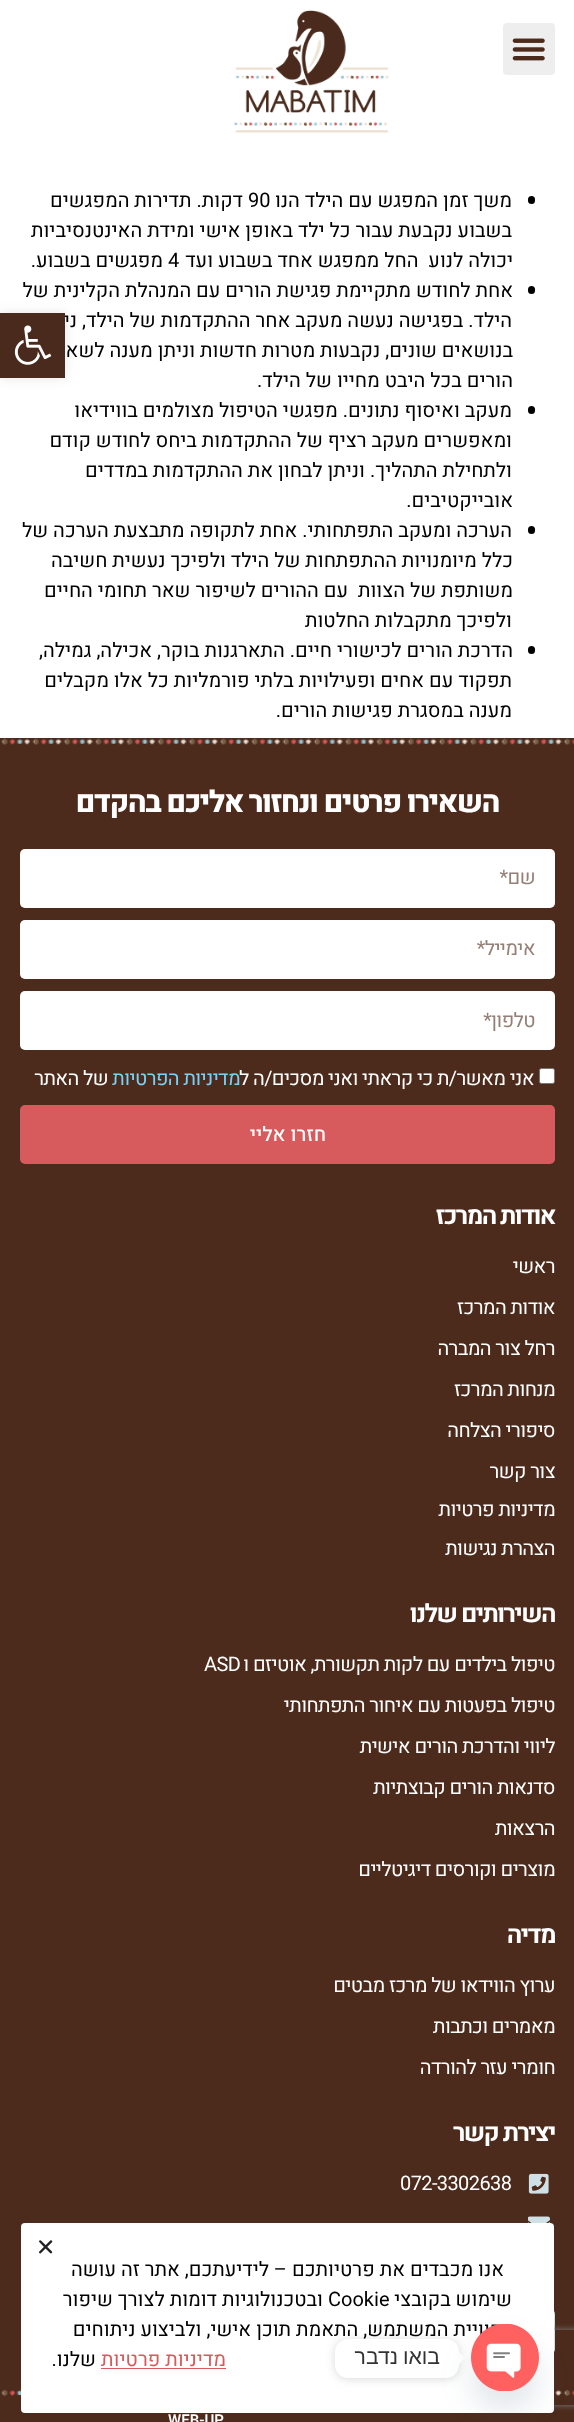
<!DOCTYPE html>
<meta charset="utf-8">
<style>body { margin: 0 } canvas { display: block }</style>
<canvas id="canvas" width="574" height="2422"></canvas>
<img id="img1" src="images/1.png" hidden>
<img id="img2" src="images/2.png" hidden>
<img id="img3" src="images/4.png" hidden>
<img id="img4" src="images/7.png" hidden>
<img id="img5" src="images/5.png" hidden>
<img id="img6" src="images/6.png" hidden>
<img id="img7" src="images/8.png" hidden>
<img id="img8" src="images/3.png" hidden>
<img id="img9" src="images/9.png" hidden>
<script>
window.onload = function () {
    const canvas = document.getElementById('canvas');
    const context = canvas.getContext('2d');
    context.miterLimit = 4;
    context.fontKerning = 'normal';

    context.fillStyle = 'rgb(255, 255, 255)';
    context.fillRect(0, 0, 574, 2422);
    context.fillStyle = 'rgb(238, 238, 238)';
    context.beginPath();
    context.roundRect(503, 23, 52, 52, 4);
    context.fill();
    context.drawImage(document.getElementById('img1'), 512, 38, 33, 23);
    context.drawImage(document.getElementById('img2'), 234, 10, 155, 123);
    context.fillStyle = 'rgb(0, 0, 0)';
    context.beginPath();
    context.roundRect(528, 196, 7, 8, 3.5);
    context.fill();
    context.beginPath();
    context.roundRect(528, 286, 7, 8, 3.5);
    context.fill();
    context.beginPath();
    context.roundRect(528, 406, 7, 8, 3.5);
    context.fill();
    context.beginPath();
    context.roundRect(528, 526, 7, 8, 3.5);
    context.fill();
    context.beginPath();
    context.roundRect(528, 646, 7, 8, 3.5);
    context.fill();
    context.fillStyle = 'rgba(0, 0, 0, 0.1)';
    context.filter = 'blur(6px)';
    context.beginPath();
    context.rect(0, 313, 65, 65);
    context.fill();
    context.filter = 'none';
    context.fillStyle = 'rgb(76, 43, 28)';
    context.fillRect(0, 738, 574, 1684);
    context.drawImage(document.getElementById('img3'), 1, 738, 573, 7);
    context.fillStyle = 'rgb(255, 255, 255)';
    context.beginPath();
    context.roundRect(20, 849, 535, 59, 5);
    context.fill();
    context.beginPath();
    context.roundRect(20, 920, 535, 59, 5);
    context.fill();
    context.beginPath();
    context.roundRect(20, 991, 535, 59, 5);
    context.fill();
    context.beginPath();
    context.roundRect(539.5, 1068.5, 15, 15, 2);
    context.fill();
    context.strokeStyle = 'rgb(118, 118, 118)';
    context.stroke();
    context.fillStyle = 'rgb(215, 91, 92)';
    context.beginPath();
    context.roundRect(20, 1105, 535, 59, 5);
    context.fill();
    context.fillStyle = 'rgb(207, 224, 231)';
    context.beginPath();
    context.roundRect(510, 2309, 45, 45, 5);
    context.fill();
    context.drawImage(document.getElementById('img4'), 1, 2389, 573, 8);
    context.save();
    context.beginPath();
    context.moveTo(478, 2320);
    context.lineTo(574, 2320);
    context.lineTo(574, 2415);
    context.lineTo(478, 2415);
    context.closePath();
    context.moveTo(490.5, 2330);
    context.lineTo(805.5, 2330);
    context.bezierCurveTo(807, 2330, 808, 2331, 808, 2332.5);
    context.lineTo(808, 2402.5);
    context.bezierCurveTo(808, 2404, 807, 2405, 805.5, 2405);
    context.lineTo(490.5, 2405);
    context.bezierCurveTo(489, 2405, 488, 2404, 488, 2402.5);
    context.lineTo(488, 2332.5);
    context.bezierCurveTo(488, 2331, 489, 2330, 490.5, 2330);
    context.closePath();
    context.clip('evenodd');
    context.fillStyle = 'rgb(128, 128, 128)';
    context.filter = 'blur(3px)';
    context.beginPath();
    context.roundRect(488, 2330, 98, 75, 2.5);
    context.fill();
    context.filter = 'none';
    context.restore();
    context.drawImage(document.getElementById('img5'), 528, 2173, 21, 21);
    context.drawImage(document.getElementById('img6'), 528, 2216, 22, 7);
    context.fillStyle = 'rgb(255, 255, 255)';
    context.beginPath();
    context.roundRect(21, 2223, 533, 190, 4);
    context.fill();
    context.drawImage(document.getElementById('img7'), 39, 2240, 14, 14);
    context.fillStyle = 'rgb(215, 91, 92)';
    context.fillRect(101, 2368, 125, 1);
    context.fillStyle = 'rgba(0, 0, 0, 0.15)';
    context.filter = 'blur(5px)';
    context.beginPath();
    context.roundRect(335, 2340, 124, 39, 13);
    context.fill();
    context.filter = 'none';
    context.fillStyle = 'rgb(255, 255, 255)';
    context.beginPath();
    context.moveTo(459, 2364.5);
    context.lineTo(459, 2352);
    context.lineTo(465, 2358);
    context.closePath();
    context.fill();
    context.direction = 'rtl';
    context.font = '20px Heebo';
    context.fillStyle = 'rgb(0, 0, 0)';
    context.fillText('משך זמן המפגש עם הילד הנו', 512, 207);
    context.direction = 'ltr';
    context.fillText('90', 248, 207);
    context.direction = 'rtl';
    context.fillText('דקות. תדירות המפגשים', 243, 207);
    context.fillText('בשבוע נקבעת עבור כל ילד באופן אישי ומידת האינטנסיביות', 512, 237);
    context.fillText('יכולה לנוע  החל ממפגש אחד בשבוע ועד', 513, 267);
    context.direction = 'ltr';
    context.fillText('4', 168, 267);
    context.direction = 'rtl';
    context.fillText('מפגשים בשבוע.', 163, 267);
    context.fillText('אחת לחודש מתקיימת פגישת הורים עם המנהלת הקלינית של', 513, 297);
    context.fillText('הילד. בפגישה נעשה מעקב אחר ההתקדמות של הילד, ניתן ידע', 512, 327);
    context.fillText('בנושאים שונים, נקבעות מטרות חדשות וניתן מענה לשאלות', 513, 357);
    context.fillText('הורים בכל היבט מחייו של הילד.', 513, 387);
    context.fillText('מעקב ואיסוף נתונים. מפגשי הטיפול מצולמים בווידיאו', 512, 417);
    context.fillText('ומאפשרים מעקב רציף של ההתקדמות ביחס לחודש קודם', 512, 447);
    context.fillText('ולתחילת התהליך. וניתן לבחון את ההתקדמות במדדים', 512, 477);
    context.fillText('אובייקטיבים.', 513, 507);
    context.fillText('הערכה ומעקב התפתחותי. אחת לתקופה מתבצעת הערכה של', 512, 537);
    context.fillText('כלל מיומנויות ההתפתחות של הילד ולפיכך נעשית חשיבה', 513, 567);
    context.fillText('משותפת של הצוות  עם ההורים לשיפור שאר תחומי החיים', 513, 597);
    context.fillText('ולפיכך מתקבלות החלטות', 512, 627);
    context.fillText('הדרכת הורים לכישורי חיים. התארגנות בוקר, אכילה, גמילה,', 513, 657);
    context.fillText('תפקוד עם אחים ופעילויות בלתי פורמליות כל אלו מקבלים', 512, 687);
    context.fillText('מענה במסגרת פגישות הורים.', 512, 717);
    context.fillStyle = 'rgb(74, 42, 28)';
    context.fillRect(0, 313, 65, 65);
    context.drawImage(document.getElementById('img8'), 14, 325, 38, 40);
    context.letterSpacing = '-1.5px';
    context.font = '800 30px Heebo';
    context.fillStyle = 'rgb(255, 255, 255)';
    context.fillText('השאירו פרטים ונחזור אליכם בהקדם', 499, 812);
    context.letterSpacing = '-0.6px';
    context.font = '20px Heebo';
    context.fillStyle = 'rgb(148, 128, 119)';
    context.fillText('שם*', 535, 884);
    context.fillText('אימייל*', 535, 955);
    context.fillText('טלפון*', 535, 1027);
    context.fillStyle = 'rgb(255, 255, 255)';
    context.fillText('אני מאשר/ת כי קראתי ואני מסכים/ה ל', 534, 1085);
    context.fillStyle = 'rgb(121, 210, 246)';
    context.fillText('מדיניות הפרטיות', 240, 1085);
    context.fillStyle = 'rgb(255, 255, 255)';
    context.fillText('של האתר', 108, 1085);
    context.letterSpacing = '0px';
    context.font = '500 20px Heebo';
    context.fillText('חזרו אליי', 326, 1141);
    context.letterSpacing = '-1.6px';
    context.font = 'bold 25px Heebo';
    context.fillText('אודות המרכז', 555, 1224);
    context.letterSpacing = '-0.6px';
    context.font = '20px Heebo';
    context.fillText('ראשי', 555, 1273);
    context.fillText('אודות המרכז', 555, 1314);
    context.fillText('רחל צור המברה', 555, 1355);
    context.fillText('מנחות המרכז', 555, 1396);
    context.fillText('סיפורי הצלחה', 555, 1437);
    context.fillText('צור קשר', 555, 1478);
    context.fillText('מדיניות פרטיות', 555, 1516);
    context.fillText('הצהרת נגישות', 555, 1555);
    context.letterSpacing = '-1.6px';
    context.font = 'bold 25px Heebo';
    context.fillText('השירותים שלנו', 555, 1622);
    context.letterSpacing = '-0.6px';
    context.font = '20px Heebo';
    context.fillText('טיפול בילדים עם לקות תקשורת, אוטיזם ו', 555, 1671);
    context.direction = 'ltr';
    context.fillText('ASD', 204, 1671);
    context.direction = 'rtl';
    context.fillText('טיפול בפעטות עם איחור התפתחותי', 555, 1712);
    context.fillText('ליווי והדרכת הורים אישית', 555, 1753);
    context.fillText('סדנאות הורים קבוצתיות', 555, 1794);
    context.fillText('הרצאות', 555, 1835);
    context.fillText('מוצרים וקורסים דיגיטליים', 555, 1876);
    context.letterSpacing = '-1.6px';
    context.font = 'bold 25px Heebo';
    context.fillText('מדיה', 555, 1943);
    context.letterSpacing = '-0.6px';
    context.font = '20px Heebo';
    context.fillText('ערוץ הווידאו של מרכז מבטים', 555, 1992);
    context.fillText('מאמרים וכתבות', 555, 2033);
    context.fillText('חומרי עזר להורדה', 555, 2074);
    context.letterSpacing = '-1.6px';
    context.font = 'bold 25px Heebo';
    context.fillText('יצירת קשר', 555, 2141);
    context.letterSpacing = '-0.6px';
    context.direction = 'ltr';
    context.font = '20px Heebo';
    context.fillText('072-3302638', 400, 2190);
    context.letterSpacing = '0px';
    context.font = '600 15px Heebo';
    context.fillText('WEB-UP', 168, 2425);
    context.direction = 'rtl';
    context.font = '20px Heebo';
    context.fillStyle = 'rgb(0, 0, 0)';
    context.fillText('אנו מכבדים את פרטיותכם – לידיעתכם, אתר זה עושה', 504, 2276);
    context.fillText('שימוש בקובצי', 512, 2306);
    context.direction = 'ltr';
    context.fillText('Cookie', 328, 2306);
    context.direction = 'rtl';
    context.fillText('ובטכנולוגיות דומות לצורך שיפור', 323, 2306);
    context.fillText('חוויית המשתמש, התאמת תוכן אישי, ולביצוע ניתוחים', 502, 2336);
    context.fillStyle = 'rgb(215, 91, 92)';
    context.fillText('מדיניות פרטיות', 226, 2366);
    context.fillStyle = 'rgb(0, 0, 0)';
    context.fillText('שלנו.', 96, 2366);
    context.fillStyle = 'rgb(255, 255, 255)';
    context.beginPath();
    context.roundRect(335, 2339, 124, 39, 13);
    context.fill();
    context.fillStyle = 'rgba(73, 104, 126, 0.16)';
    context.filter = 'blur(15px)';
    context.beginPath();
    context.roundRect(471, 2344, 68, 67, 33.5);
    context.fill();
    context.filter = 'none';
    context.drawImage(document.getElementById('img9'), 471, 2324, 68, 67);
    context.wordSpacing = '-1px';
    context.font = '21.25px Liberation Sans';
    context.fillStyle = 'rgb(51, 51, 51)';
    context.fillText('בואו נדבר', 440, 2364);
};
</script>
